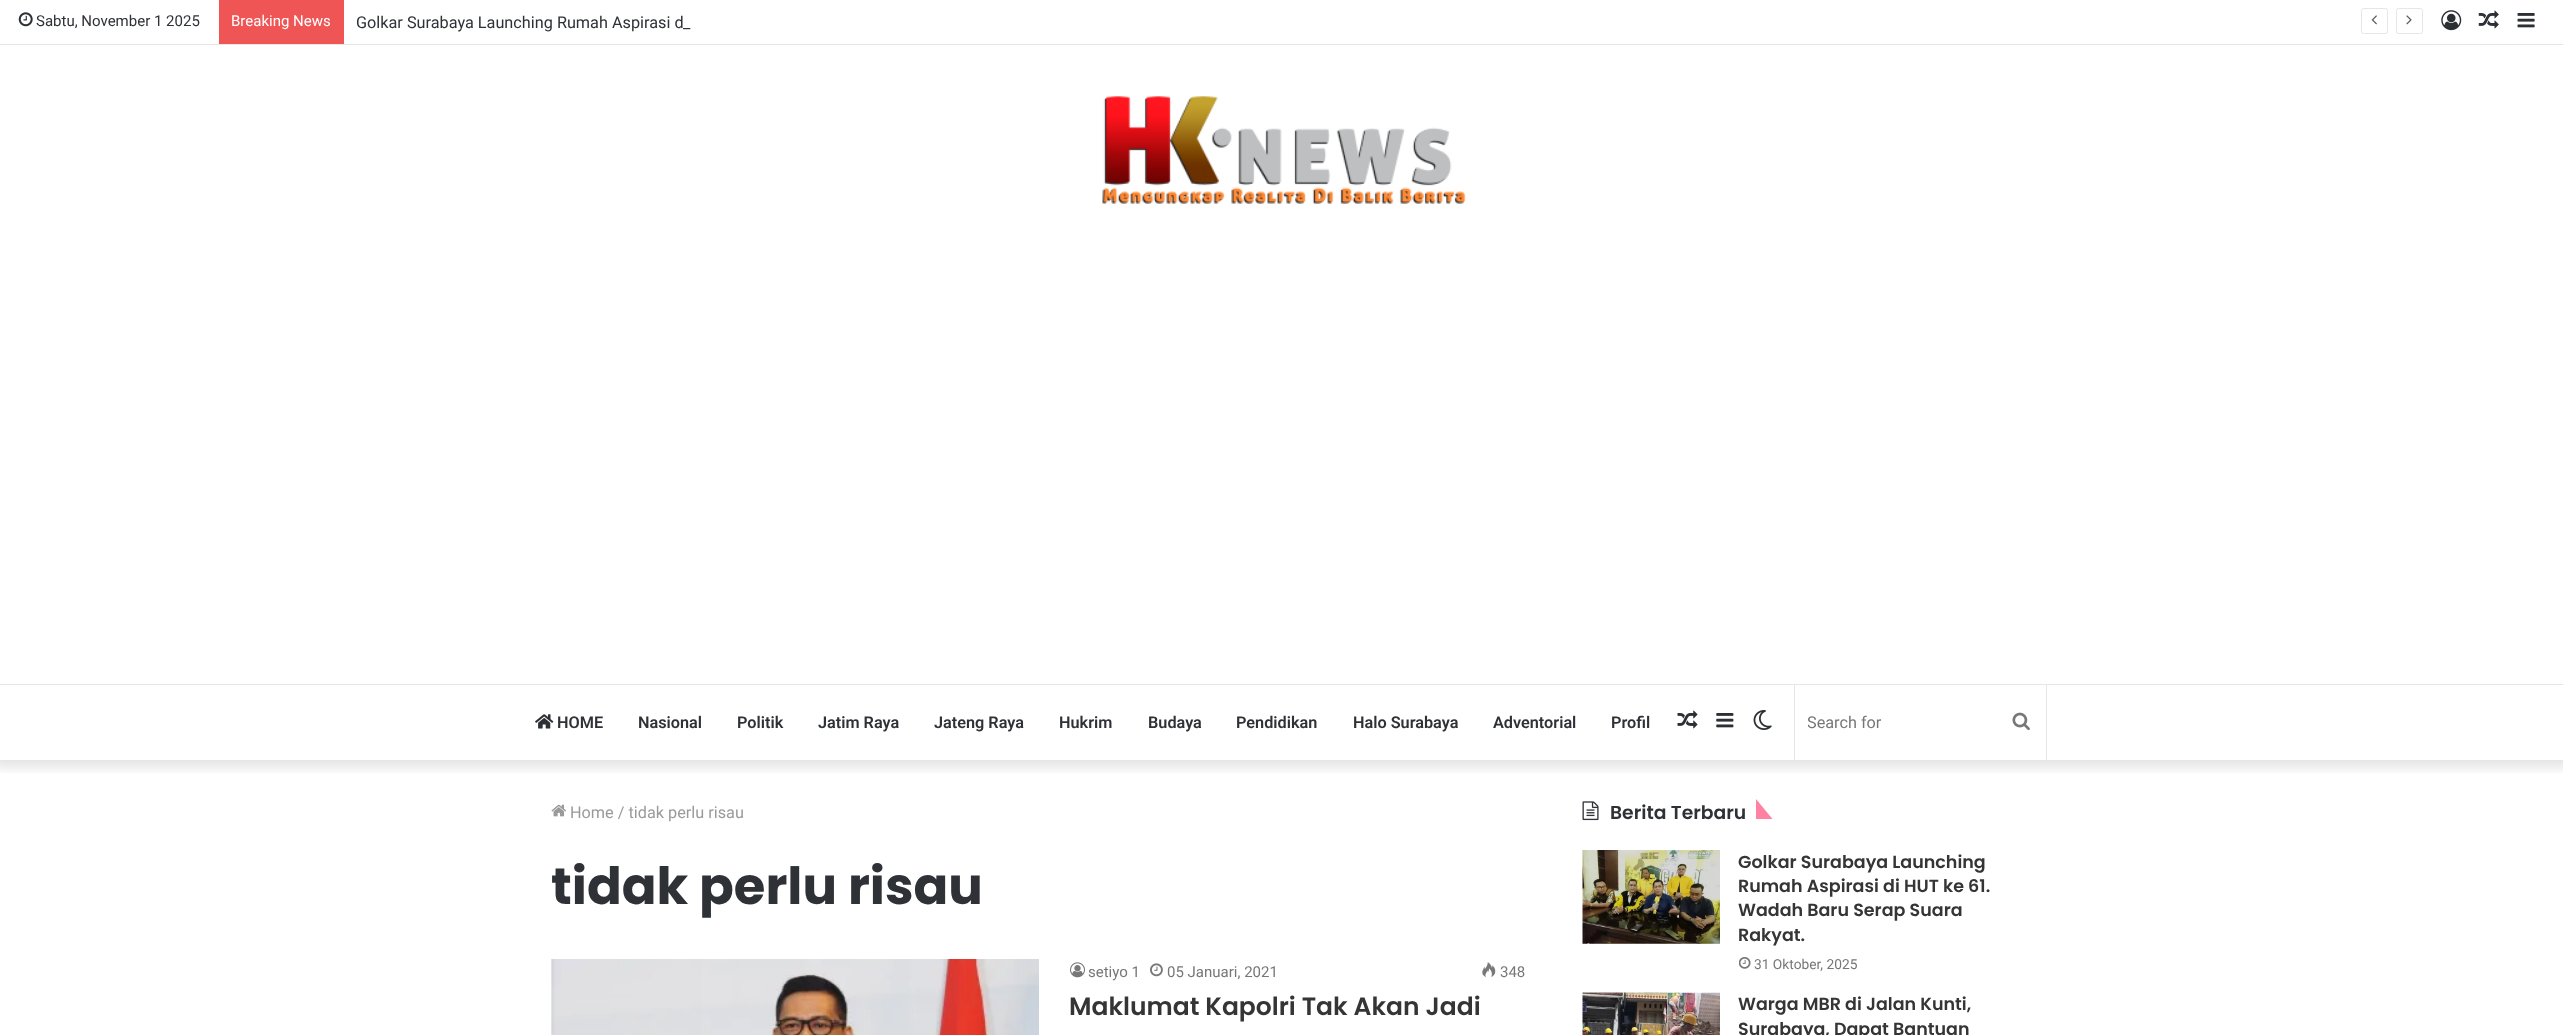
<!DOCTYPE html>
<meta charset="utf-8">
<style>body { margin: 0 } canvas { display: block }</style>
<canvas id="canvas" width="2563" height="1035"></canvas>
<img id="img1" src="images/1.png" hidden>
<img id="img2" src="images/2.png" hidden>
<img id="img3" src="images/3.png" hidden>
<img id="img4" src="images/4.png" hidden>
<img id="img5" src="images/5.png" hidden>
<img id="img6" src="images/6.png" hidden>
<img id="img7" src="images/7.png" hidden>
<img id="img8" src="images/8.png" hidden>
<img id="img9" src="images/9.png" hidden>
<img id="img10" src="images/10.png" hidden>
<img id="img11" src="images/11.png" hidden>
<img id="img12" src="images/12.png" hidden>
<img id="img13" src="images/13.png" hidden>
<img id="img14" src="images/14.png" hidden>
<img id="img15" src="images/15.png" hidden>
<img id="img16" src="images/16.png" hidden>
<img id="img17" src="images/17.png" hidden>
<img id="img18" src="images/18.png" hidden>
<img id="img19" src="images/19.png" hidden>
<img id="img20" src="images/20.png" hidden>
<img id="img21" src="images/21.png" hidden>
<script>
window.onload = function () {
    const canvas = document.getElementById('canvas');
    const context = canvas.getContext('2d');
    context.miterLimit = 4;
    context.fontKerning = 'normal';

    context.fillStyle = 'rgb(255, 255, 255)';
    context.fillRect(0, 0, 2563, 1035);
    context.save();
    context.beginPath();
    context.rect(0, 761, 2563, 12);
    context.clip();
    context.fillStyle = 'rgba(0, 0, 0, 0.1)';
    context.filter = 'blur(6px)';
    context.beginPath();
    context.rect(-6, -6, 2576, 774);
    context.fill();
    context.filter = 'none';
    context.restore();
    context.fillStyle = 'rgb(230, 230, 230)';
    context.fillRect(0, 44, 2563, 1);
    context.drawImage(document.getElementById('img1'), 18, 12, 15, 15);
    context.fillStyle = 'rgb(240, 85, 85)';
    context.fillRect(219, 0, 125, 44);
    context.beginPath();
    context.roundRect(2361.5, 8.5, 26, 25, 2);
    context.strokeStyle = 'rgb(230, 230, 230)';
    context.stroke();
    context.drawImage(document.getElementById('img2'), 2371, 15, 6, 10);
    context.beginPath();
    context.roundRect(2396.5, 8.5, 26, 25, 2);
    context.stroke();
    context.drawImage(document.getElementById('img3'), 2406, 15, 6, 10);
    context.drawImage(document.getElementById('img4'), 2441, 10, 21, 21);
    context.drawImage(document.getElementById('img5'), 2478, 10, 21, 19);
    context.drawImage(document.getElementById('img6'), 2517, 13, 18, 15);
    context.drawImage(document.getElementById('img7'), 1102, 96, 364, 108);
    context.fillStyle = 'rgb(230, 230, 230)';
    context.fillRect(0, 684, 2563, 1);
    context.fillRect(0, 760, 2563, 1);
    context.drawImage(document.getElementById('img8'), 535, 714, 19, 15);
    context.drawImage(document.getElementById('img9'), 1677, 710, 21, 19);
    context.drawImage(document.getElementById('img10'), 1716, 713, 18, 15);
    context.drawImage(document.getElementById('img11'), 1753, 710, 19, 20);
    context.fillRect(2046, 685, 1, 75);
    context.fillRect(1794, 685, 1, 75);
    context.drawImage(document.getElementById('img12'), 2012, 712, 18, 19);
    context.drawImage(document.getElementById('img13'), 551, 804, 15, 13);
    context.drawImage(document.getElementById('img14'), 551, 959, 488, 76);
    context.drawImage(document.getElementById('img15'), 1070, 962, 15, 16);
    context.drawImage(document.getElementById('img16'), 1150, 963, 13, 14);
    context.drawImage(document.getElementById('img17'), 1482, 962, 14, 15);
    context.drawImage(document.getElementById('img18'), 1582, 801, 17, 20);
    context.fillStyle = 'rgb(255, 130, 163)';
    context.beginPath();
    context.moveTo(1756, 819);
    context.lineTo(1756, 799);
    context.lineTo(1772.5, 819);
    context.closePath();
    context.fill();
    context.drawImage(document.getElementById('img19'), 1582, 850, 138, 94);
    context.drawImage(document.getElementById('img20'), 1739, 957, 12, 12);
    context.drawImage(document.getElementById('img21'), 1582, 992, 138, 43);
    context.font = '15px Roboto';
    context.fillStyle = 'rgb(46, 49, 54)';
    context.fillText('Sabtu, November 1 2025', 36, 26);
    context.fillStyle = 'rgb(255, 255, 255)';
    context.fillText('Breaking News', 231, 26);
    context.font = '16.25px Roboto';
    context.fillStyle = 'rgb(46, 49, 54)';
    context.fillText('Golkar Surabaya Launching Rumah Aspirasi d', 356, 28);
    context.fillText('_', 683, 28);
    context.font = '600 16.25px Roboto';
    context.fillText('HOME', 557, 728);
    context.fillText('Nasional', 638, 728);
    context.fillText('Politik', 737, 728);
    context.fillText('Jatim Raya', 818, 728);
    context.fillText('Jateng Raya', 934, 728);
    context.fillText('Hukrim', 1059, 728);
    context.fillText('Budaya', 1148, 728);
    context.fillText('Pendidikan', 1236, 728);
    context.fillText('Halo Surabaya', 1353, 728);
    context.fillText('Adventorial', 1493, 728);
    context.fillText('Profil', 1611, 728);
    context.save();
    context.beginPath();
    context.rect(1808, 713, 207, 18);
    context.clip();
    context.font = '16.25px Roboto';
    context.fillStyle = 'rgb(119, 119, 119)';
    context.fillText('Search for', 1807, 728);
    context.restore();
    context.font = '16.25px Roboto';
    context.fillStyle = 'rgb(154, 154, 154)';
    context.fillText('Home / tidak perlu risau', 570, 818);
    context.font = 'bold 51.25px Poppins';
    context.fillStyle = 'rgb(46, 49, 54)';
    context.fillText('tidak perlu risau', 551, 904);
    context.font = '15px Roboto';
    context.fillStyle = 'rgb(119, 119, 119)';
    context.fillText('setiyo 1', 1088, 977);
    context.fillText('05 Januari, 2021', 1167, 977);
    context.fillText('348', 1500, 977);
    context.font = '600 25px Poppins';
    context.fillStyle = 'rgb(53, 53, 53)';
    context.fillText('Maklumat Kapolri Tak Akan Jadi', 1069, 1015);
    context.font = '600 18.75px Poppins';
    context.fillStyle = 'rgb(46, 49, 54)';
    context.fillText('Berita Terbaru', 1610, 819);
    context.font = '600 17.5px Poppins';
    context.fillStyle = 'rgb(53, 53, 53)';
    context.fillText('Golkar Surabaya Launching', 1738, 868);
    context.fillText('Rumah Aspirasi di HUT ke 61.', 1738, 892);
    context.fillText('Wadah Baru Serap Suara', 1738, 916);
    context.fillText('Rakyat.', 1738, 941);
    context.font = '13.75px Roboto';
    context.fillStyle = 'rgb(119, 119, 119)';
    context.fillText('31 Oktober, 2025', 1754, 969);
    context.font = '600 17.5px Poppins';
    context.fillStyle = 'rgb(53, 53, 53)';
    context.fillText('Warga MBR di Jalan Kunti,', 1738, 1010);
    context.fillText('Surabaya, Dapat Bantuan', 1738, 1035);
};
</script>
